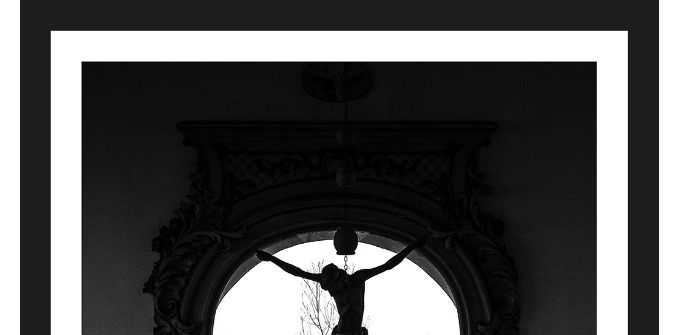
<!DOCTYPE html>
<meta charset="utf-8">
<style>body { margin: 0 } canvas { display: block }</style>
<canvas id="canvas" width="680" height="335"></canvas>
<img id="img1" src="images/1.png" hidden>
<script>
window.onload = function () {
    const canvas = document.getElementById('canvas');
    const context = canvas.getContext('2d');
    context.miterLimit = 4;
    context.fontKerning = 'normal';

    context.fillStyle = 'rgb(255, 255, 255)';
    context.fillRect(0, 0, 680, 335);
    context.drawImage(document.getElementById('img1'), 20, 0, 639, 335);
};
</script>
